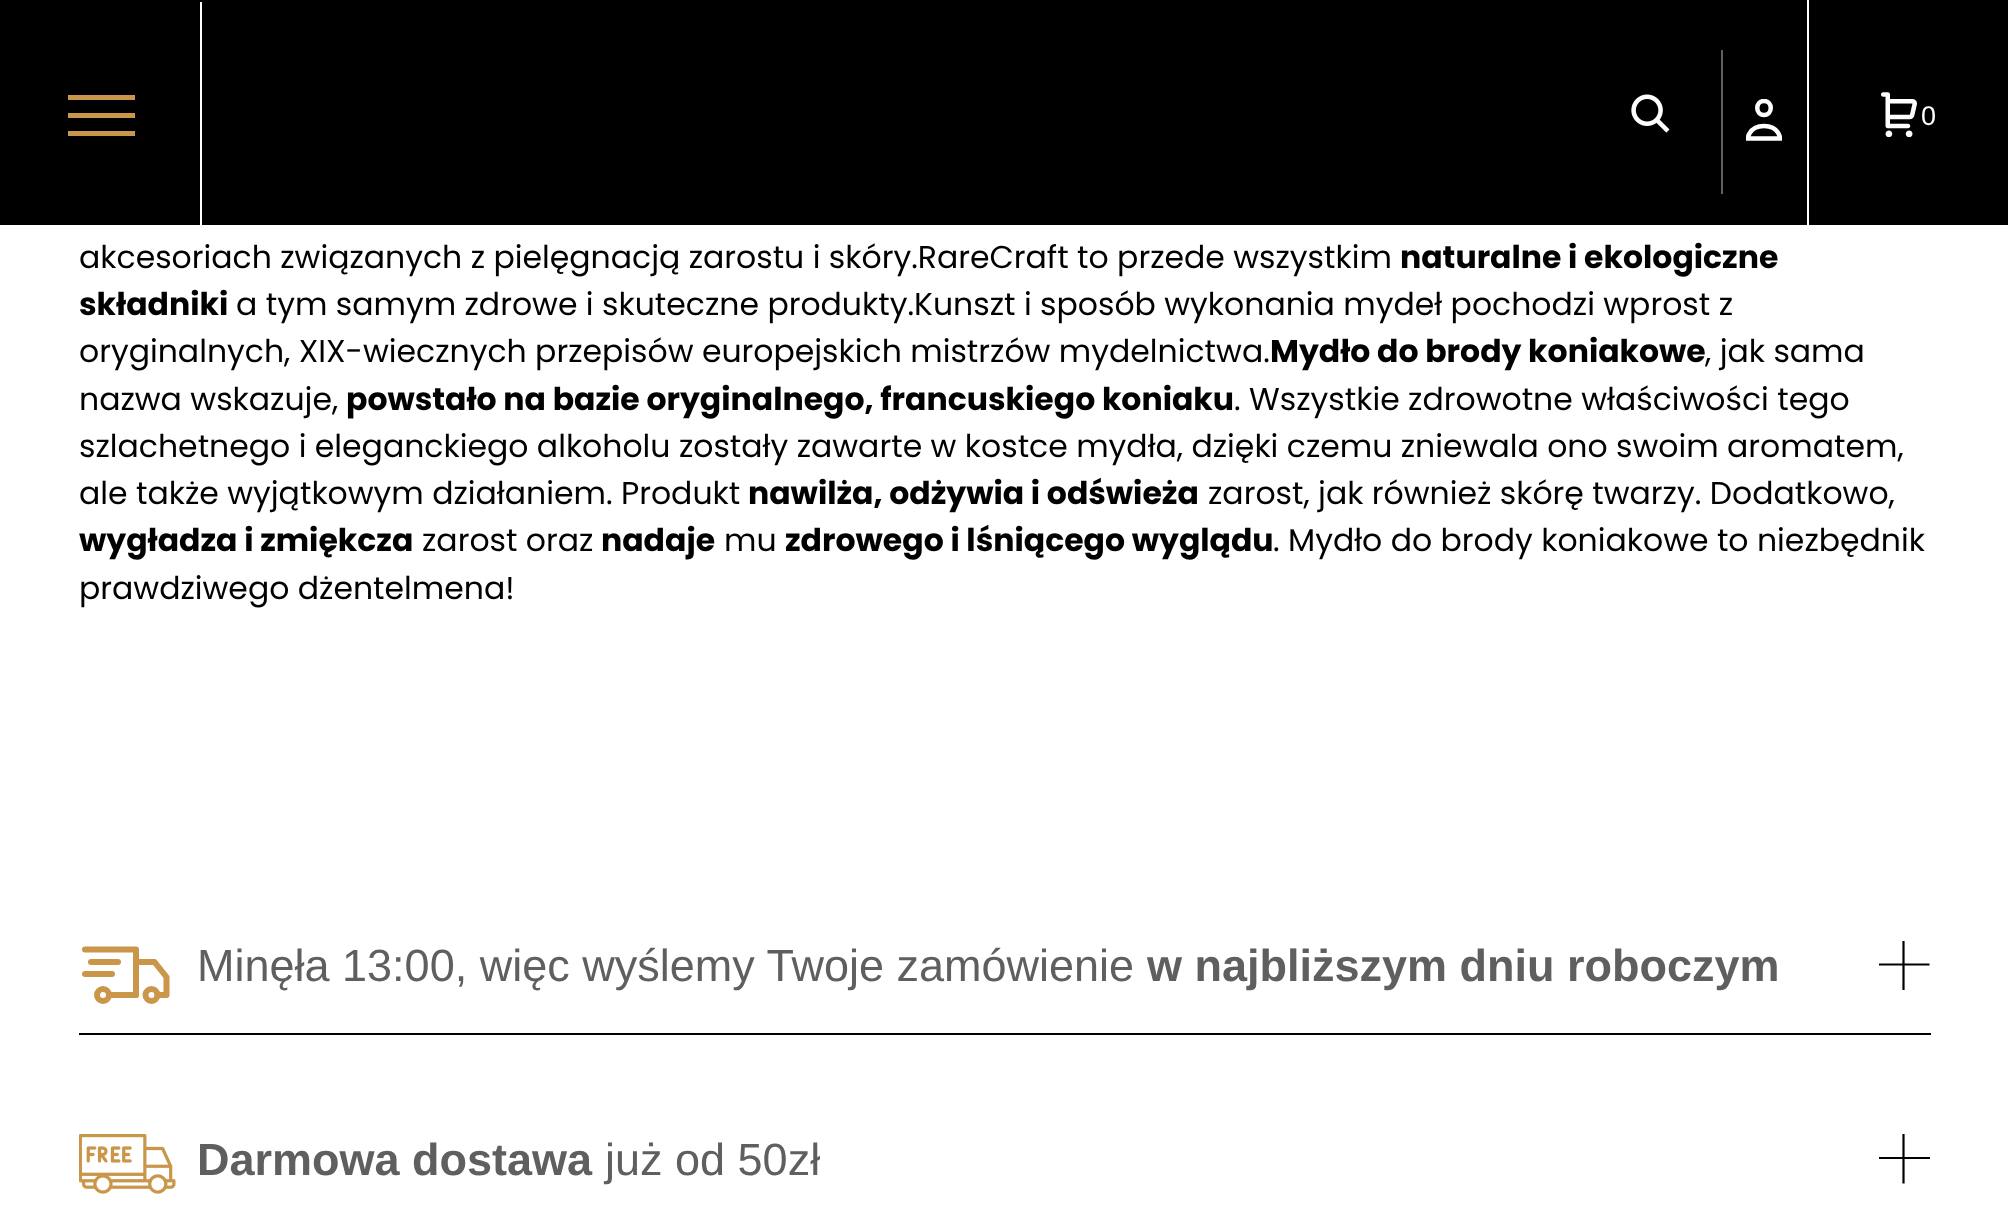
<svg xmlns="http://www.w3.org/2000/svg" width="2008" height="1214" viewBox="0 0 2008 1214">
  <defs>
    <clipPath id="clip1"><rect x="1746" y="99" width="36" height="43"/></clipPath>
    <clipPath id="clip2"><rect x="1879" y="941" width="52" height="51"/></clipPath>
    <clipPath id="clip3"><rect x="1879" y="1134" width="52" height="52"/></clipPath>
  </defs>
  <rect width="100%" height="100%" fill="#ffffff"/>
  <rect x="0" y="0" width="2008" height="225" fill="#000000"/>
  <rect x="200" y="2" width="2" height="225" fill="#ffffff"/>
  <rect x="68" y="95" width="67" height="5" fill="#c9964a"/>
  <rect x="68" y="113" width="67" height="5" fill="#c9964a"/>
  <rect x="68" y="131" width="67" height="5" fill="#c9964a"/>
  <image x="1631" y="94" width="39" height="39" href="img1.png"/>
  <rect x="1721" y="50" width="2" height="144" fill="#5f5f5f"/>
  <g clip-path="url(#clip1)">
    <path d="M1764 115C1755 115 1755 101 1764 101C1773 101 1773 115 1764 115ZM1764 126C1770 126 1775.5 128 1778.5 133.5C1779.5 135.5 1780 136.5 1780 138.5H1748C1748 136.5 1748.5 135 1749.5 133.5C1752.5 128 1758 126 1764 126Z" fill="none" stroke="#ffffff" stroke-width="4.5"/>
  </g>
  <rect x="1807" y="0" width="2" height="225" fill="#ffffff"/>
  <image x="1881" y="92" width="36" height="45" href="img2.png"/>
  <text x="1921" y="125" font-family="Liberation Sans" font-size="27" fill="#ffffff">0</text>
  <text x="79" y="268" font-family="Poppins" font-size="31.5" fill="#000000">akcesoriach związanych z pielęgnacją zarostu i skóry.RareCraft to przede wszystkim</text>
  <text x="1400" y="268" font-family="Poppins" font-size="31.5" font-weight="bold" fill="#000000">naturalne i ekologiczne</text>
  <text x="79" y="315" font-family="Poppins" font-size="31.5" font-weight="bold" fill="#000000">składniki</text>
  <text x="236" y="315" font-family="Poppins" font-size="31.5" fill="#000000">a tym samym zdrowe i skuteczne produkty.Kunszt i sposób wykonania mydeł pochodzi wprost z</text>
  <text x="79" y="362" font-family="Poppins" font-size="31.5" fill="#000000">oryginalnych, XIX-wiecznych przepisów europejskich mistrzów mydelnictwa.</text>
  <text x="1270" y="362" font-family="Poppins" font-size="31.5" font-weight="bold" fill="#000000">Mydło do brody koniakowe</text>
  <text x="1705" y="362" font-family="Poppins" font-size="31.5" fill="#000000">, jak sama</text>
  <text x="79" y="410" font-family="Poppins" font-size="31.5" fill="#000000">nazwa wskazuje,</text>
  <text x="346" y="410" font-family="Poppins" font-size="31.5" font-weight="bold" fill="#000000">powstało na bazie oryginalnego, francuskiego koniaku</text>
  <text x="1234" y="410" font-family="Poppins" font-size="31.5" fill="#000000">. Wszystkie zdrowotne właściwości tego</text>
  <text x="79" y="457" font-family="Poppins" font-size="31.5" fill="#000000">szlachetnego i eleganckiego alkoholu zostały zawarte w kostce mydła, dzięki czemu zniewala ono swoim aromatem,</text>
  <text x="79" y="504" font-family="Poppins" font-size="31.5" fill="#000000">ale także wyjątkowym działaniem. Produkt</text>
  <text x="748" y="504" font-family="Poppins" font-size="31.5" font-weight="bold" fill="#000000">nawilża, odżywia i odświeża</text>
  <text x="1208" y="504" font-family="Poppins" font-size="31.5" fill="#000000">zarost, jak również skórę twarzy. Dodatkowo,</text>
  <text x="79" y="551" font-family="Poppins" font-size="31.5" font-weight="bold" fill="#000000">wygładza i zmiękcza</text>
  <text x="422" y="551" font-family="Poppins" font-size="31.5" fill="#000000">zarost oraz</text>
  <text x="601" y="551" font-family="Poppins" font-size="31.5" font-weight="bold" fill="#000000">nadaje</text>
  <text x="724" y="551" font-family="Poppins" font-size="31.5" fill="#000000">mu</text>
  <text x="785" y="551" font-family="Poppins" font-size="31.5" font-weight="bold" fill="#000000">zdrowego i lśniącego wyglądu</text>
  <text x="1273" y="551" font-family="Poppins" font-size="31.5" fill="#000000">. Mydło do brody koniakowe to niezbędnik</text>
  <text x="79" y="599" font-family="Poppins" font-size="31.5" fill="#000000">prawdziwego dżentelmena!</text>
  <rect x="79" y="1033" width="1852" height="2" fill="#000000"/>
  <path d="M85 949.5H136V995H109" fill="none" stroke="#c9964a" stroke-width="6" stroke-linecap="round" stroke-linejoin="round"/>
  <circle cx="151.5" cy="995" r="6" fill="none" stroke="#c9964a" stroke-width="6"/>
  <circle cx="103" cy="995" r="6" fill="none" stroke="#c9964a" stroke-width="6"/>
  <path d="M136 995V962H154.5L166.5 977V995H157.5" fill="none" stroke="#c9964a" stroke-width="6" stroke-linecap="round" stroke-linejoin="round"/>
  <path d="M91 962H118M85 974H112" fill="none" stroke="#c9964a" stroke-width="6" stroke-linecap="round" stroke-linejoin="round"/>
  <text x="197" y="981" font-family="Liberation Sans" font-size="45" fill="#5f5f5f">Minęła 13:00, więc wyślemy Twoje zamówienie</text>
  <text x="1147" y="981" font-family="Liberation Sans" font-size="45" font-weight="bold" fill="#5f5f5f">w najbliższym dniu roboczym</text>
  <g clip-path="url(#clip2)">
    <path d="M1903.5 939.5V990" fill="none" stroke="#000000" stroke-width="2.2"/>
  </g>
  <path d="M1929.5 964.5H1879" fill="none" stroke="#000000" stroke-width="2.2"/>
  <image x="79" y="1134" width="97" height="60" href="img3.png"/>
  <text x="197" y="1175" font-family="Liberation Sans" font-size="45" font-weight="bold" fill="#5f5f5f">Darmowa dostawa</text>
  <text x="605" y="1175" font-family="Liberation Sans" font-size="45" fill="#5f5f5f">już od 50zł</text>
  <g clip-path="url(#clip3)">
    <path d="M1903.5 1133V1183.5" fill="none" stroke="#000000" stroke-width="2.2"/>
  </g>
  <rect x="1879" y="1157" width="51" height="2" fill="#000000"/>
</svg>
